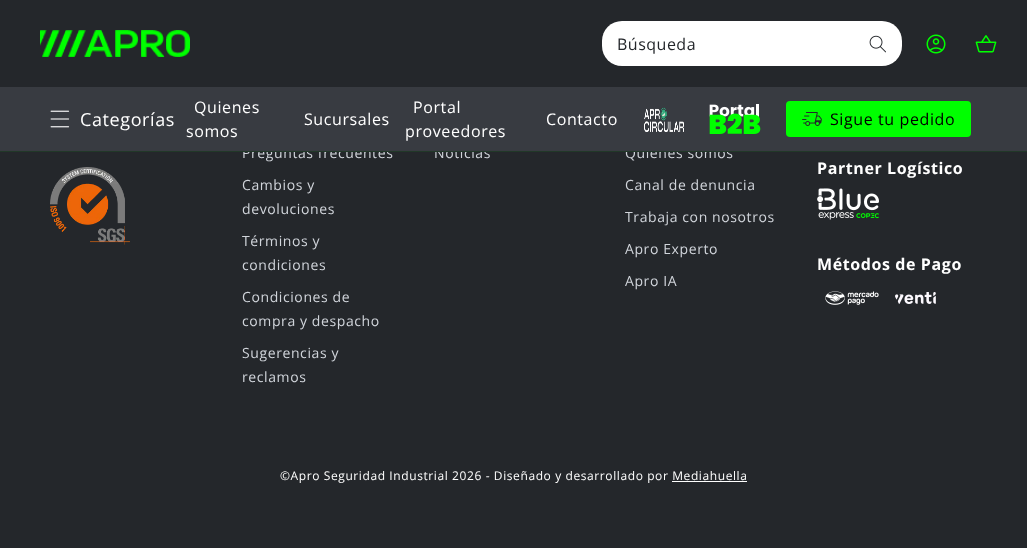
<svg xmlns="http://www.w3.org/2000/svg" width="1027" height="548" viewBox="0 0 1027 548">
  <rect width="100%" height="100%" fill="#24272b"/>
  <text x="242" y="158" font-family="Open Sans" font-size="14" letter-spacing="0.6" fill="#d1d5db">Preguntas frecuentes</text>
  <text x="434" y="158" font-family="Open Sans" font-size="14" letter-spacing="0.6" fill="#d1d5db">Noticias</text>
  <text x="625" y="158" font-family="Open Sans" font-size="14" letter-spacing="0.6" fill="#d1d5db">Quiénes somos</text>
  <rect x="0" y="151" width="1027" height="1" fill="#213828"/>
  <image x="40" y="30" width="150" height="27" href="img1.png"/>
  <rect x="602" y="21" width="300" height="45" rx="20" fill="#ffffff"/>
  <text x="617" y="50" font-family="Open Sans" font-size="16" letter-spacing="0.5" fill="#24272b">Búsqueda</text>
  <image x="869" y="35" width="17" height="18" href="img2.png"/>
  <image x="926" y="34" width="20" height="20" href="img3.png"/>
  <image x="975" y="35" width="22" height="18" href="img4.png"/>
  <rect x="0" y="87" width="1027" height="64" fill="#383b41"/>
  <image x="50" y="110" width="20" height="18" href="img5.png"/>
  <text x="80" y="126" font-family="Open Sans" font-size="18" letter-spacing="0.6" fill="#ffffff">Categorías</text>
  <text x="194" y="113" font-family="Open Sans" font-size="16" letter-spacing="0.6" fill="#ffffff">Quienes</text>
  <text x="186" y="137" font-family="Open Sans" font-size="16" letter-spacing="0.6" fill="#ffffff">somos</text>
  <text x="304" y="125" font-family="Open Sans" font-size="16" letter-spacing="0.6" fill="#ffffff">Sucursales</text>
  <text x="413" y="113" font-family="Open Sans" font-size="16" letter-spacing="0.6" fill="#ffffff">Portal</text>
  <text x="405" y="137" font-family="Open Sans" font-size="16" letter-spacing="0.6" fill="#ffffff">proveedores</text>
  <text x="546" y="125" font-family="Open Sans" font-size="16" letter-spacing="0.6" fill="#ffffff">Contacto</text>
  <image x="644" y="107" width="40" height="25" href="img6.png"/>
  <image x="709" y="104" width="52" height="30" href="img7.png"/>
  <rect x="786" y="101" width="185" height="36" rx="4" fill="#00ff00"/>
  <image x="802" y="112" width="20" height="14" href="img8.png"/>
  <text x="830" y="125" font-family="Open Sans" font-size="16" letter-spacing="0.6" fill="#000000">Sigue tu pedido</text>
  <image x="50" y="167" width="80" height="78" href="img9.png"/>
  <text x="242" y="190" font-family="Open Sans" font-size="14" letter-spacing="0.6" fill="#d1d5db">Cambios y</text>
  <text x="242" y="214" font-family="Open Sans" font-size="14" letter-spacing="0.6" fill="#d1d5db">devoluciones</text>
  <text x="242" y="246" font-family="Open Sans" font-size="14" letter-spacing="0.6" fill="#d1d5db">Términos y</text>
  <text x="242" y="270" font-family="Open Sans" font-size="14" letter-spacing="0.6" fill="#d1d5db">condiciones</text>
  <text x="242" y="302" font-family="Open Sans" font-size="14" letter-spacing="0.6" fill="#d1d5db">Condiciones de</text>
  <text x="242" y="326" font-family="Open Sans" font-size="14" letter-spacing="0.6" fill="#d1d5db">compra y despacho</text>
  <text x="242" y="358" font-family="Open Sans" font-size="14" letter-spacing="0.6" fill="#d1d5db">Sugerencias y</text>
  <text x="242" y="382" font-family="Open Sans" font-size="14" letter-spacing="0.6" fill="#d1d5db">reclamos</text>
  <text x="625" y="190" font-family="Open Sans" font-size="14" letter-spacing="0.6" fill="#d1d5db">Canal de denuncia</text>
  <text x="625" y="222" font-family="Open Sans" font-size="14" letter-spacing="0.6" fill="#d1d5db">Trabaja con nosotros</text>
  <text x="625" y="254" font-family="Open Sans" font-size="14" letter-spacing="0.6" fill="#d1d5db">Apro Experto</text>
  <text x="625" y="286" font-family="Open Sans" font-size="14" letter-spacing="0.6" fill="#d1d5db">Apro IA</text>
  <text x="817" y="174" font-family="Open Sans" font-size="16" font-weight="bold" letter-spacing="0.6" fill="#ffffff">Partner Logístico</text>
  <image x="817" y="188" width="62" height="32" href="img10.png"/>
  <text x="817" y="270" font-family="Open Sans" font-size="16" font-weight="bold" letter-spacing="0.6" fill="#ffffff">Métodos de Pago</text>
  <image x="825" y="291" width="54" height="14" href="img11.png"/>
  <image x="895" y="292" width="41" height="12" href="img12.png"/>
  <text x="280" y="480" font-family="Open Sans" font-size="12" letter-spacing="0.6" fill="#ffffff">©Apro Seguridad Industrial 2026 - Diseñado y desarrollado por Mediahuella</text>
  <rect x="672" y="481" width="75" height="1" fill="#ffffff"/>
</svg>
